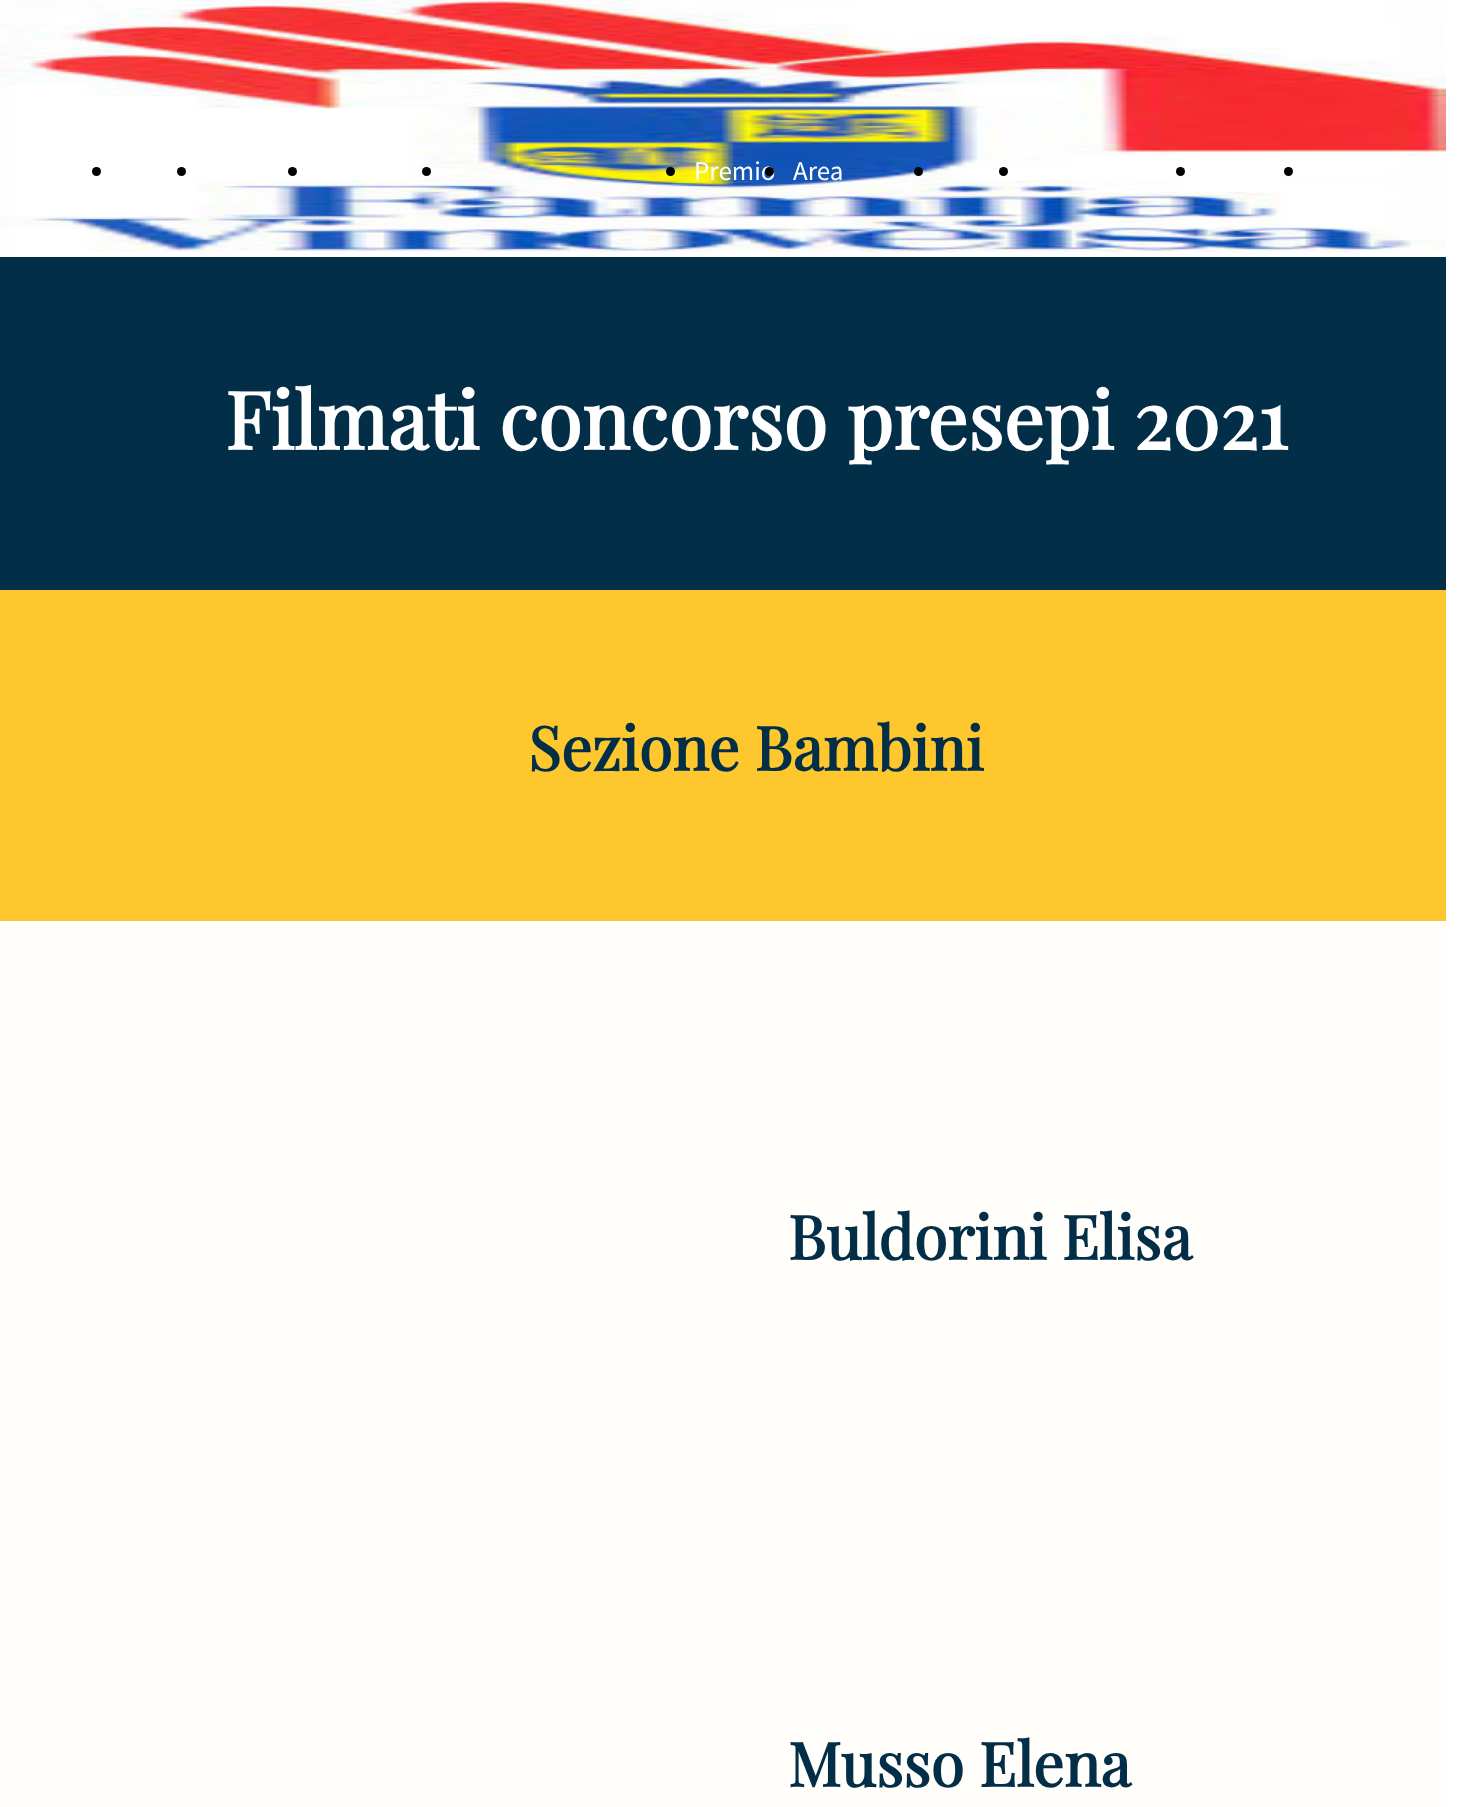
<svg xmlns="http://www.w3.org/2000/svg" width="1463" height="1807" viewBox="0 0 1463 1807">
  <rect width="100%" height="100%" fill="#ffffff"/>
  <image x="0" y="0" width="1446" height="252" href="img1.png"/>
  <circle cx="96.5" cy="171.5" r="4.5" fill="#000000"/>
  <circle cx="181.5" cy="171.5" r="4.5" fill="#000000"/>
  <circle cx="292.5" cy="171.5" r="4.5" fill="#000000"/>
  <circle cx="426.5" cy="171.5" r="4.5" fill="#000000"/>
  <circle cx="670.5" cy="171.5" r="4.5" fill="#000000"/>
  <text x="694" y="180" font-family="Source Sans Pro" font-size="27" fill="#ffffff">Premio</text>
  <circle cx="769.5" cy="171.5" r="4.5" fill="#000000"/>
  <text x="793" y="180" font-family="Source Sans Pro" font-size="27" fill="#ffffff">Area</text>
  <circle cx="918.5" cy="171.5" r="4.5" fill="#000000"/>
  <circle cx="1003.5" cy="171.5" r="4.5" fill="#000000"/>
  <circle cx="1180.5" cy="171.5" r="4.5" fill="#000000"/>
  <circle cx="1288.5" cy="171.5" r="4.5" fill="#000000"/>
  <rect x="0" y="257" width="1446" height="333" fill="#032e47"/>
  <text x="225" y="450" font-family="Playfair Display" font-size="79.9" font-weight="bold" fill="#ffffff">Filmati concorso presepi 2021</text>
  <rect x="0" y="590" width="1446" height="331" fill="#fec72e"/>
  <text x="528" y="771" font-family="Playfair Display" font-size="61" font-weight="bold" fill="#032e47">Sezione Bambini</text>
  <rect x="0" y="921" width="1446" height="886" fill="#fffefb"/>
  <text x="788" y="1260" font-family="Playfair Display" font-size="61" font-weight="bold" fill="#032e47">Buldorini Elisa</text>
  <text x="788" y="1787" font-family="Playfair Display" font-size="61" font-weight="bold" fill="#032e47">Musso Elena</text>
</svg>
